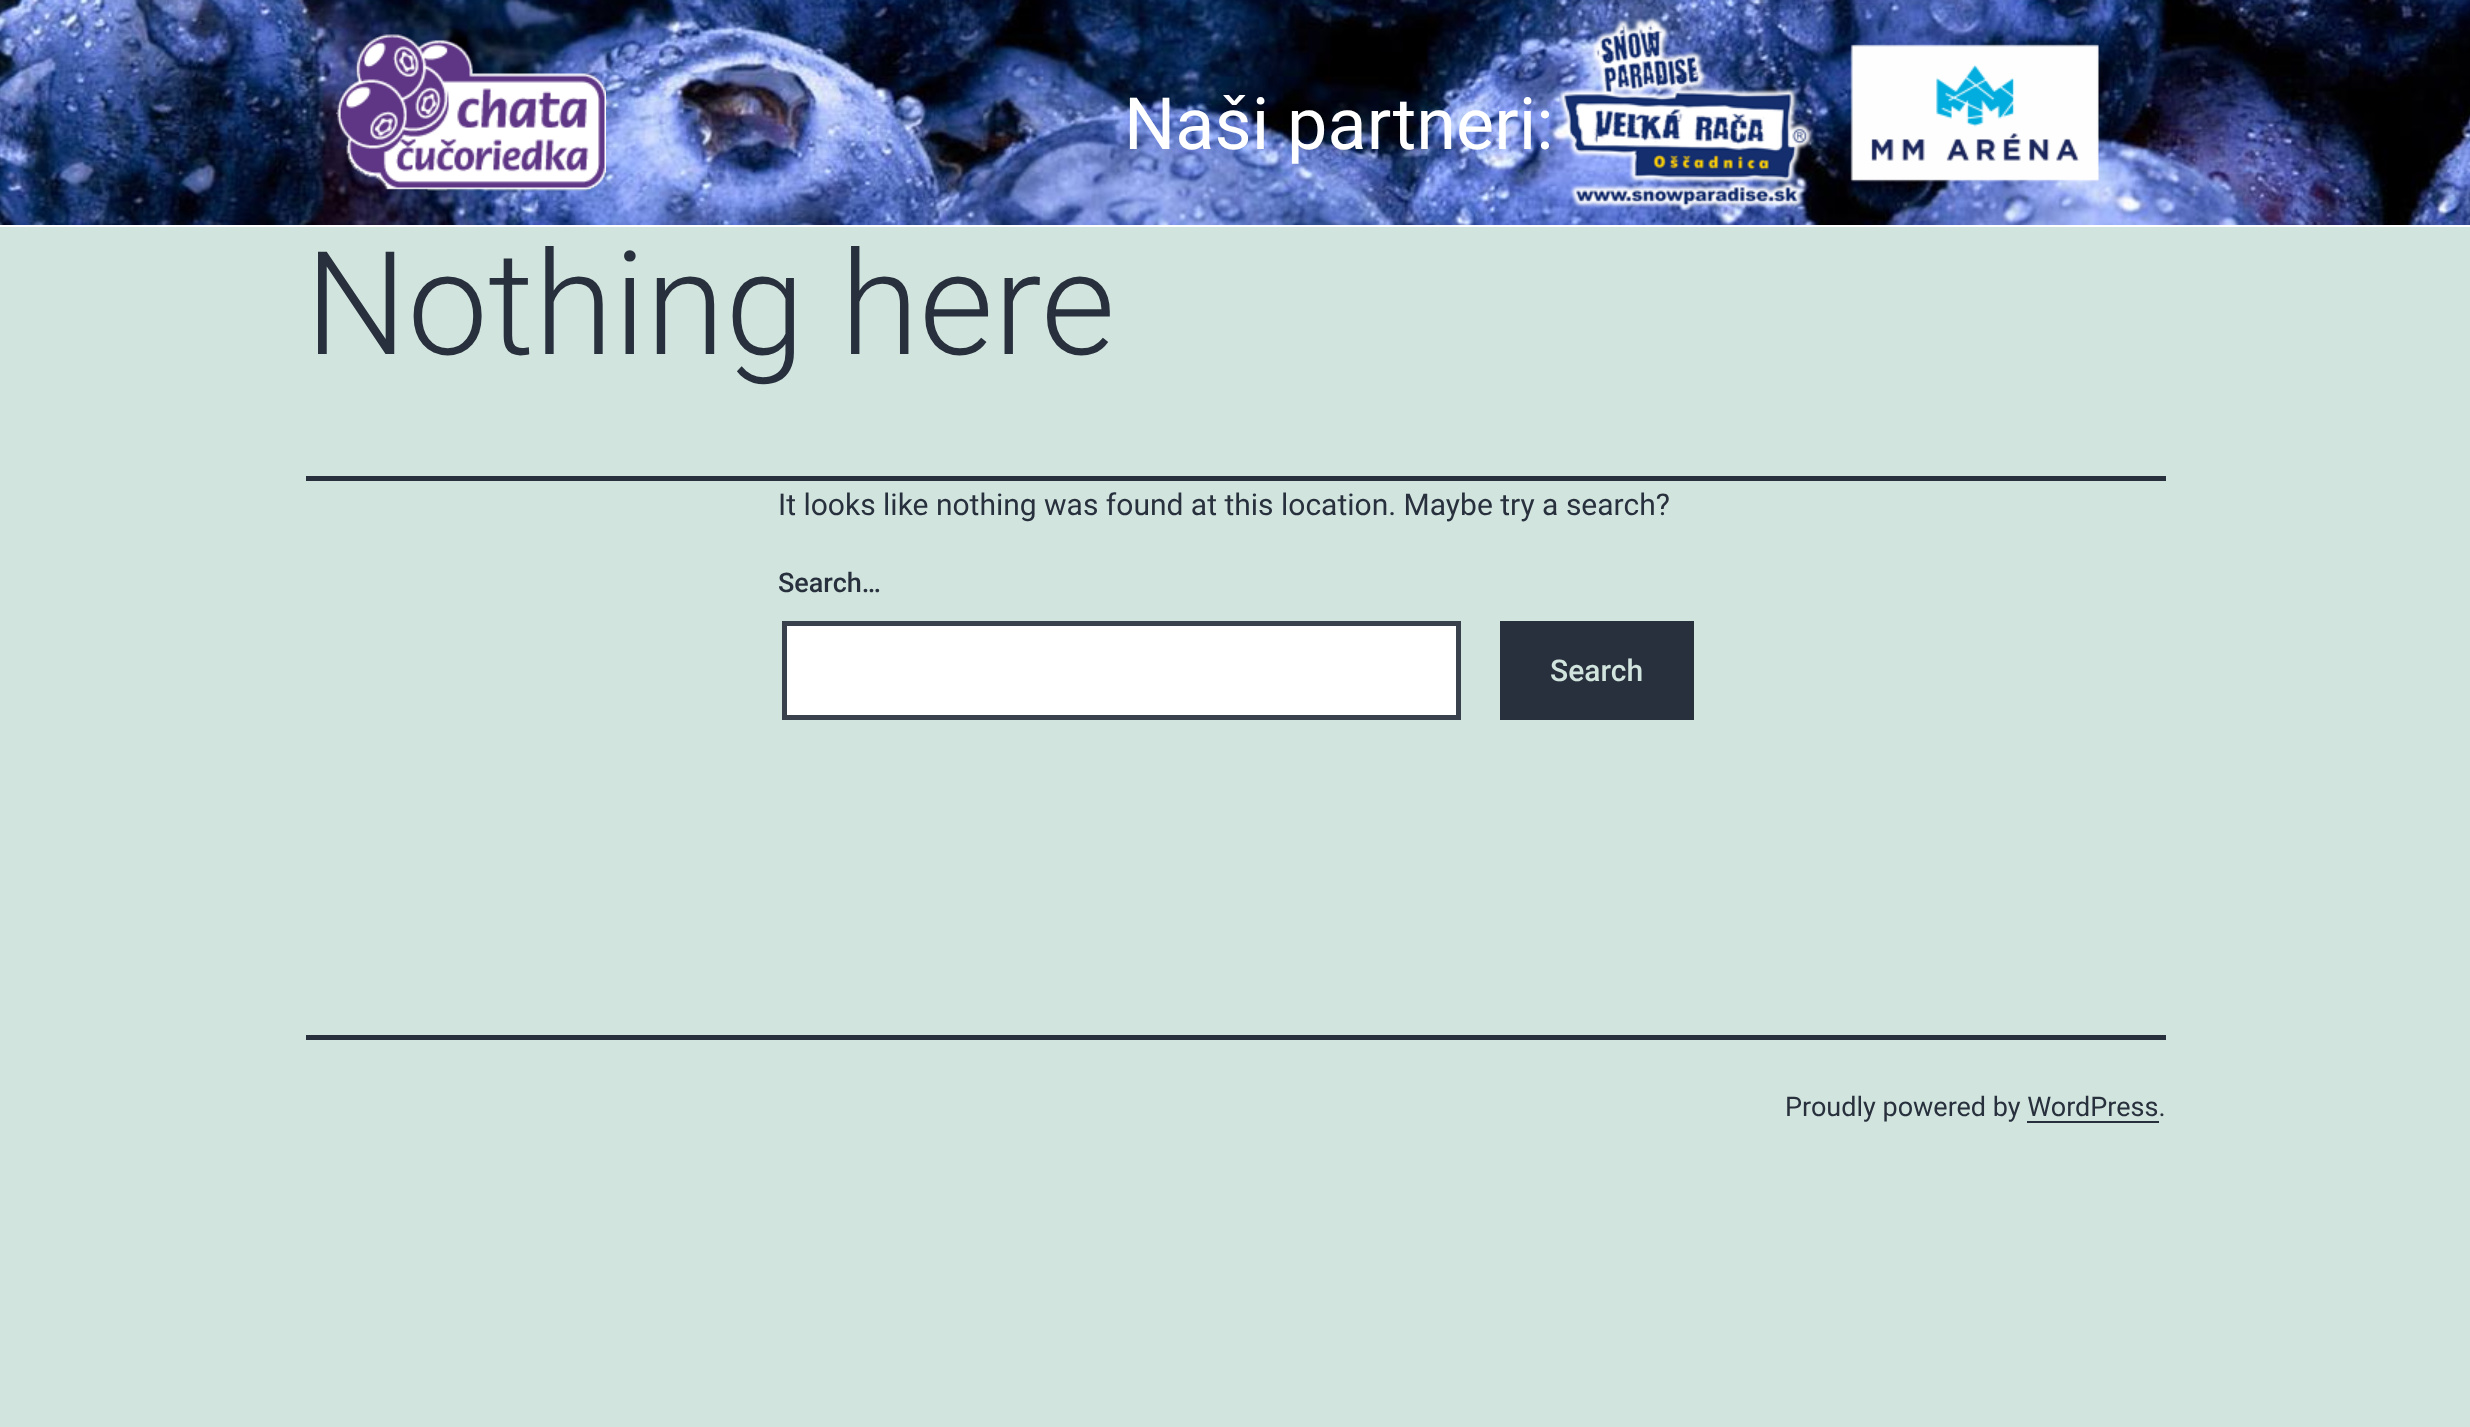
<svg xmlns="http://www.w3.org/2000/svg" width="2470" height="1427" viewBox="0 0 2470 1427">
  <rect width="100%" height="100%" fill="#d1e4dd"/>
  <image x="0" y="0" width="2470" height="225" href="img1.png"/>
  <image x="336" y="34" width="270" height="157" href="img2.png"/>
  <text x="1124" y="149" font-family="Roboto" font-size="72" fill="#ffffff">Naši partneri:</text>
  <image x="1558" y="16" width="255" height="194" href="img3.png"/>
  <image x="1850" y="44" width="249" height="138" href="img4.png"/>
  <rect x="0" y="225" width="2470" height="2" fill="#ffffff"/>
  <rect x="306" y="476" width="1860" height="5" fill="#28303d"/>
  <text x="305" y="354" font-family="Roboto" font-size="144" font-weight="300" fill="#28303d">Nothing here</text>
  <text x="778" y="515" font-family="Roboto" font-size="30" fill="#28303d">It looks like nothing was found at this location. Maybe try a search?</text>
  <text x="778" y="592" font-family="Roboto" font-size="27" font-weight="500" fill="#28303d">Search…</text>
  <rect x="784.5" y="623.5" width="674" height="94" fill="#ffffff" stroke="#39414d" stroke-width="5"/>
  <rect x="1500" y="621" width="194" height="99" fill="#28303d"/>
  <text x="1550" y="681" font-family="Roboto" font-size="30" font-weight="500" fill="#d1e4dd">Search</text>
  <rect x="306" y="1035" width="1860" height="5" fill="#28303d"/>
  <text x="1785" y="1116" font-family="Roboto" font-size="27" fill="#28303d">Proudly powered by WordPress.</text>
  <rect x="2027" y="1121" width="132" height="2" fill="#28303d"/>
</svg>
